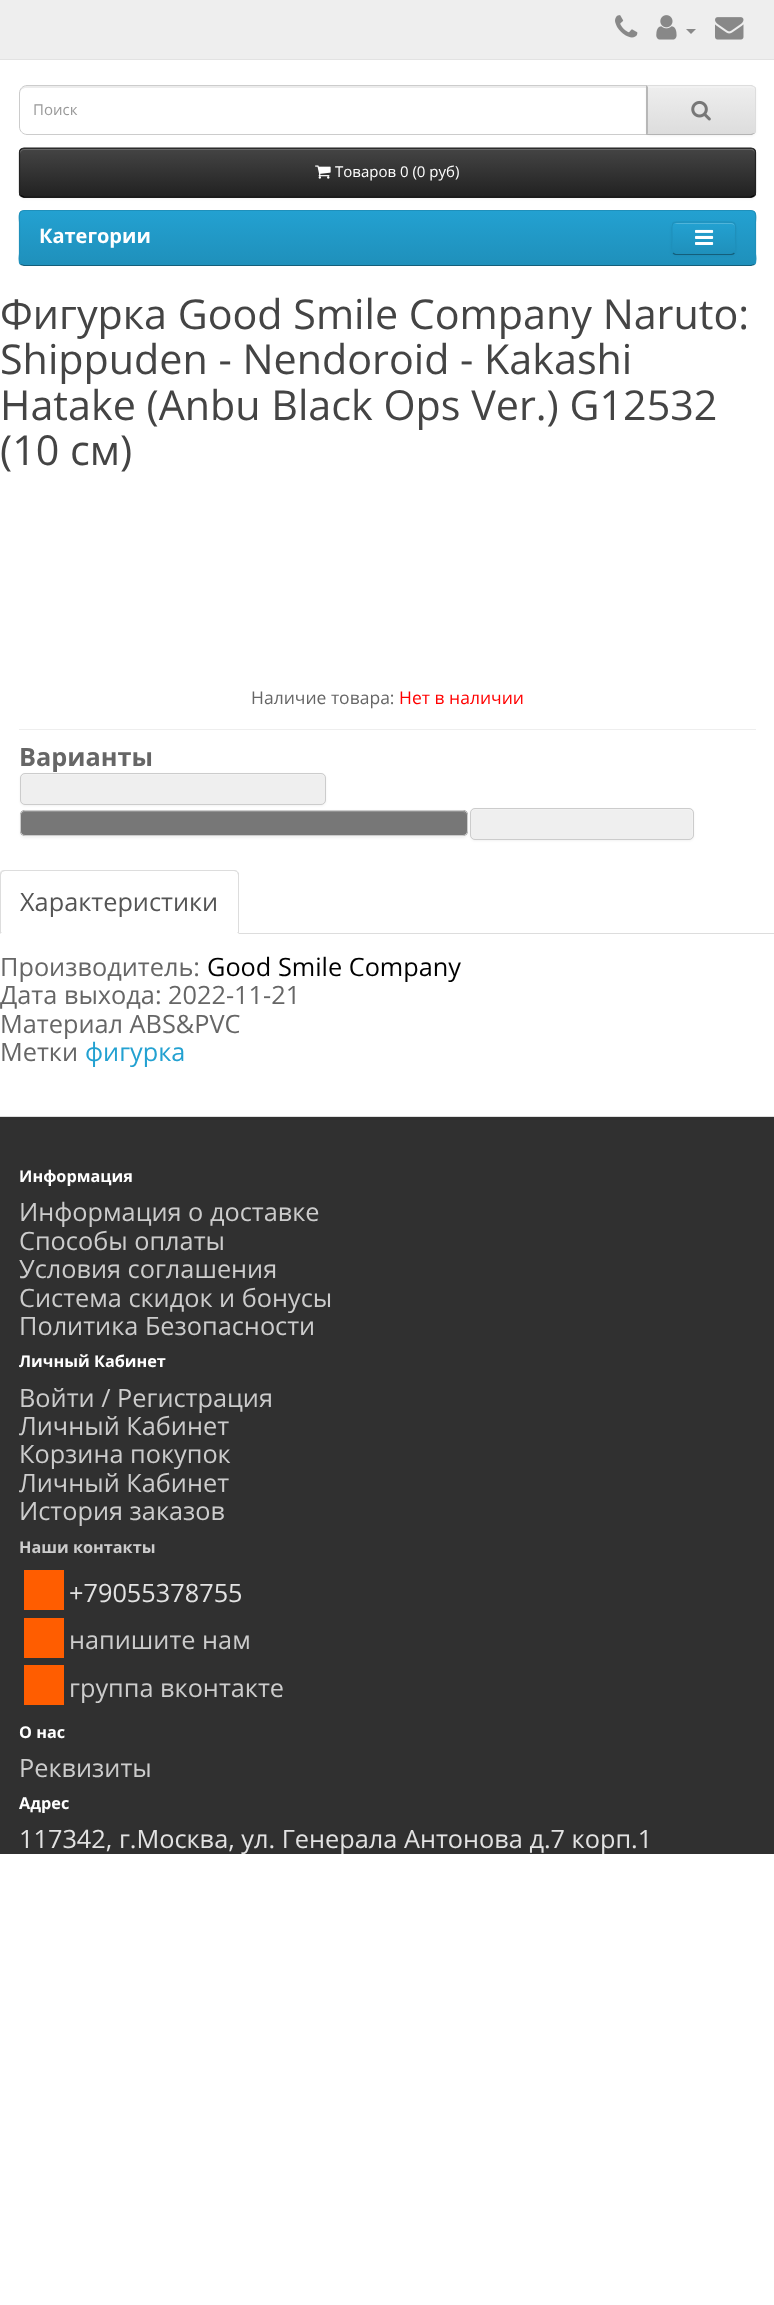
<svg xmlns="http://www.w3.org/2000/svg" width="774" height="2305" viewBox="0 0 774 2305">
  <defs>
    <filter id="blur1" x="-50%" y="-200%" width="200%" height="500%"><feGaussianBlur stdDeviation="1"/></filter>
    <clipPath id="clip1"><path d="M646 85H751C754 85 756 87 756 90V130C756 133 754 135 751 135H646Z"/></clipPath>
    <linearGradient id="g1" gradientUnits="userSpaceOnUse" x1="701" y1="86" x2="701" y2="134"><stop offset="0" stop-color="#eeeeee"/><stop offset="1" stop-color="#dddddd"/></linearGradient>
    <clipPath id="clip2"><rect x="19" y="148" width="737" height="50" rx="5"/></clipPath>
    <linearGradient id="g2" gradientUnits="userSpaceOnUse" x1="388" y1="149" x2="388" y2="196"><stop offset="0" stop-color="#444444"/><stop offset="1" stop-color="#222222"/></linearGradient>
    <clipPath id="clip3"><rect x="19" y="210" width="737" height="56" rx="5"/></clipPath>
    <linearGradient id="g3" gradientUnits="userSpaceOnUse" x1="388" y1="211" x2="388" y2="265"><stop offset="0" stop-color="#23a1d1"/><stop offset="1" stop-color="#1f90bb"/></linearGradient>
    <clipPath id="clip4"><rect x="671" y="221" width="65" height="34" rx="5"/></clipPath>
    <linearGradient id="g4" gradientUnits="userSpaceOnUse" x1="704" y1="223" x2="704" y2="254"><stop offset="0" stop-color="#23a1d1"/><stop offset="1" stop-color="#1f90bb"/></linearGradient>
  </defs>
  <rect width="100%" height="100%" fill="#ffffff"/>
  <rect x="0" y="0" width="774" height="59" fill="#eeeeee"/>
  <rect x="0" y="59" width="774" height="1" fill="#e2e2e2"/>
  <image x="615" y="15" width="23" height="23" href="img1.png"/>
  <image x="656" y="15" width="21" height="25" href="img2.png"/>
  <path d="M686 29H696L691 34Z" fill="#888888"/>
  <image x="715" y="17" width="29" height="23" href="img3.png"/>
  <path d="M26 88H646V86H26C21 86 20 90 20 94C20 90 23 88 26 88Z" fill="#ececec"/>
  <path d="M27 85.5H647.5V134.5H27C23 134.5 19.5 131 19.5 127V93C19.5 89 23 85.5 27 85.5Z" fill="none" stroke="#cccccc"/>
  <text x="33" y="115" font-family="Open Sans" font-size="15" fill="#999999">Поиск</text>
  <rect x="646" y="86" width="110" height="50" rx="5" fill="#000000" fill-opacity="0.05" filter="url(#blur1)"/>
  <g clip-path="url(#clip1)">
    <rect x="647" y="86" width="109" height="48" fill="url(#g1)"/>
  </g>
  <path d="M648 88H751C753 88 755 89 755 91V90C755 88 753 86 751 86H648Z" fill="#f1f1f1"/>
  <path d="M648 86H751L754 87H755L752 85H646L648 87Z" fill="#dddddd"/>
  <path d="M755 87C756 87 756 89 756 90V130C756 131 756 133 755 133H754C755 132 755 131 755 130V90C755 89 755 88 754 87Z" fill="#dddddd"/>
  <path d="M646 135H752L755 133H754L751 134H648V133Z" fill="#b3b3b3"/>
  <path d="M646 135L648 133V87L646 85Z" fill="#b7b7b7"/>
  <image x="691" y="100" width="20" height="21" href="img4.png"/>
  <rect x="19" y="149" width="737" height="50" rx="5" fill="#000000" fill-opacity="0.05" filter="url(#blur1)"/>
  <rect x="19" y="148" width="737" height="50" rx="5" fill="#363636"/>
  <g clip-path="url(#clip2)">
    <rect x="19" y="149" width="737" height="47" fill="url(#g2)"/>
  </g>
  <path d="M24 150H751C753 150 755 152 755 154C755 151 754 149 751 149H24L21 150L20 151V154C20 152 22 150 24 150Z" fill="#696969"/>
  <path d="M754.5 195.5L751 197H24L20.5 195.5" fill="none" stroke="#000000" stroke-width="1.2"/>
  <path d="M20.5 195.5C20 195 19.5 193.5 19.5 192.5V152.5C19.5 151.5 20 150 20.5 149.5C21.5 148.5 22.5 148 24 148H751C752.5 148 753.5 148.5 754.5 149.5C755 150 755.5 151.5 755.5 152.5V192.5C755.5 193.5 755 195 754.5 195.5" fill="none" stroke="#222222" stroke-width="1.2"/>
  <image x="315" y="165" width="16" height="14" href="img5.png"/>
  <text x="335" y="177" font-family="Open Sans" font-size="15" fill="#ffffff">Товаров 0 (0 руб)</text>
  <g clip-path="url(#clip3)">
    <rect x="19" y="211" width="737" height="54" fill="url(#g3)"/>
  </g>
  <path d="M754.5 264.5L751 265.5H24L20.5 264.5" fill="none" stroke="#145e7a" stroke-width="1.2"/>
  <path d="M20.5 264.5C18 262 19.5 255.5 19.5 253.5V222.5C19.5 219.5 17.5 210.5 24 210.5H751C757.5 210.5 755.5 219.5 755.5 222.5V253.5C755.5 255.5 757 262 754.5 264.5" fill="none" stroke="#1f90bb" stroke-width="1.2"/>
  <text x="39" y="243" font-family="Open Sans" font-size="20" font-weight="bold" fill="#ffffff">Категории</text>
  <rect x="671" y="223" width="65" height="33" rx="5" fill="#000000" fill-opacity="0.05" filter="url(#blur1)"/>
  <rect x="671" y="221" width="65" height="34" rx="5" fill="#229ac8"/>
  <g clip-path="url(#clip4)">
    <rect x="671" y="223" width="65" height="31" fill="url(#g4)"/>
  </g>
  <path d="M676 224H731C733 224 735 225 735 228V227C735 225 733 223 731 223H677C676 223 675 224 674 224Z" fill="#4fb4da"/>
  <path d="M734.5 253C733.5 254 732.5 254.5 731 254.5H676C675 254.5 674 254 673 253" fill="none" stroke="#145e7a" stroke-width="1.2"/>
  <path d="M673 253C670.5 250.5 672 241.5 672 238C672 221.5 669 222 685.5 222H722C738.5 222 735.5 221.5 735.5 238C735.5 241.5 737 250.5 734.5 253" fill="none" stroke="#1f90bb" stroke-width="1.2"/>
  <image x="695" y="229" width="19" height="16" href="img6.png"/>
  <text x="0" y="329" font-family="Open Sans" font-size="41.25" fill="#444444">Фигурка Good Smile Company Naruto:</text>
  <text x="0" y="374" font-family="Open Sans" font-size="41.25" fill="#444444">Shippuden - Nendoroid - Kakashi</text>
  <text x="0" y="420" font-family="Open Sans" font-size="41.25" fill="#444444">Hatake (Anbu Black Ops Ver.) G12532</text>
  <text x="0" y="465" font-family="Open Sans" font-size="41.25" fill="#444444">(10 см)</text>
  <text x="251" y="704" font-family="Open Sans" font-size="17.5" fill="#666666">Наличие товара:</text>
  <text x="399" y="704" font-family="Open Sans" font-size="17.5" fill="#ff0000">Нет в наличии</text>
  <rect x="19" y="729" width="737" height="1" fill="#eeeeee"/>
  <text x="19" y="766" font-family="Open Sans" font-size="25.3" font-weight="bold" fill="#666666">Варианты</text>
  <rect x="20" y="774" width="306" height="32" rx="5" fill="#000000" fill-opacity="0.05" filter="url(#blur1)"/>
  <rect x="20" y="773" width="306" height="32" rx="5" fill="#efefef"/>
  <path d="M25 775H321C323 775 325 777 325 779C325 776 324 774 321 774H25L22 775C21 776 21 778 21 779C21 777 23 775 25 775Z" fill="#f2f2f2"/>
  <rect x="20.5" y="773.5" width="305" height="31" rx="4.5" fill="none" stroke="#cccccc"/>
  <rect x="20" y="811" width="448" height="27" rx="5" fill="#000000" fill-opacity="0.05" filter="url(#blur1)"/>
  <rect x="20" y="810" width="448" height="26" rx="5" fill="#777777"/>
  <path d="M25 812H462C465 812 466 814 466 816C466 813 465 811 462 811H25L23 812L22 813L21 816C21 814 23 812 25 812Z" fill="#929292"/>
  <rect x="20.5" y="810.5" width="447" height="25" rx="4.5" fill="none" stroke="#cccccc"/>
  <rect x="470" y="809" width="224" height="32" rx="5" fill="#000000" fill-opacity="0.05" filter="url(#blur1)"/>
  <rect x="470" y="808" width="224" height="32" rx="5" fill="#efefef"/>
  <path d="M475 810H689C693 810 692 819 692 821V838C692 837 693 836 693 835V813C693 811 691 809 689 809H475C473 809 471 811 471 813V814C471 812 473 810 475 810Z" fill="#f2f2f2"/>
  <rect x="470.5" y="808.5" width="223" height="31" rx="4.5" fill="none" stroke="#cccccc"/>
  <rect x="239" y="933" width="535" height="1" fill="#dddddd"/>
  <path d="M5 870C4 870 2 870 1 871L2 872L5 871H234L237 872V871C237 870 235 870 234 870Z" fill="#dddddd"/>
  <path d="M237 871L239 873V934L237 932H238V875L237 872Z" fill="#dddddd"/>
  <path d="M0 934L2 932H1V875L2 872L1 871C0 872 0 874 0 875Z" fill="#dddddd"/>
  <text x="20" y="911" font-family="Open Sans" font-size="25.3" fill="#555555">Характеристики</text>
  <text x="0" y="976" font-family="Open Sans" font-size="25.3" fill="#666666">Производитель:</text>
  <text x="207" y="976" font-family="Open Sans" font-size="25.3" fill="#000000">Good Smile Company</text>
  <text x="0" y="1004" font-family="Open Sans" font-size="25.3" fill="#666666">Дата выхода: 2022-11-21</text>
  <text x="0" y="1033" font-family="Open Sans" font-size="25.3" fill="#666666">Материал ABS&amp;PVC</text>
  <text x="0" y="1061" font-family="Open Sans" font-size="25.3" fill="#666666">Метки</text>
  <text x="85" y="1061" font-family="Open Sans" font-size="25.3" fill="#23a1d1">фигурка</text>
  <rect x="0" y="1117" width="774" height="737" fill="#303030"/>
  <rect x="0" y="1116" width="774" height="1" fill="#dddddd"/>
  <text x="19" y="1182" font-family="Open Sans" font-size="16.25" font-weight="bold" fill="#ffffff">Информация</text>
  <text x="19" y="1221" font-family="Open Sans" font-size="25.3" fill="#cccccc">Информация о доставке</text>
  <text x="19" y="1250" font-family="Open Sans" font-size="25.3" fill="#cccccc">Способы оплаты</text>
  <text x="19" y="1278" font-family="Open Sans" font-size="25.3" fill="#cccccc">Условия соглашения</text>
  <text x="19" y="1307" font-family="Open Sans" font-size="25.3" fill="#cccccc">Система скидок и бонусы</text>
  <text x="19" y="1335" font-family="Open Sans" font-size="25.3" fill="#cccccc">Политика Безопасности</text>
  <text x="19" y="1367" font-family="Open Sans" font-size="16.25" font-weight="bold" fill="#ffffff">Личный Кабинет</text>
  <text x="19" y="1407" font-family="Open Sans" font-size="25.3" fill="#cccccc">Войти / Регистрация</text>
  <text x="19" y="1435" font-family="Open Sans" font-size="25.3" fill="#cccccc">Личный Кабинет</text>
  <text x="19" y="1463" font-family="Open Sans" font-size="25.3" fill="#cccccc">Корзина покупок</text>
  <text x="19" y="1492" font-family="Open Sans" font-size="25.3" fill="#cccccc">Личный Кабинет</text>
  <text x="19" y="1520" font-family="Open Sans" font-size="25.3" fill="#cccccc">История заказов</text>
  <text x="19" y="1553" font-family="Open Sans" font-size="16.25" font-weight="bold" fill="#cccccc">Наши контакты</text>
  <rect x="24" y="1570" width="40" height="40" fill="#ff5d00"/>
  <text x="69" y="1602" font-family="Open Sans" font-size="25.3" fill="#e2e2e2">+79055378755</text>
  <rect x="24" y="1618" width="40" height="40" fill="#ff5d00"/>
  <text x="69" y="1649" font-family="Open Sans" font-size="25.3" fill="#cccccc">напишите нам</text>
  <rect x="24" y="1665" width="40" height="40" fill="#ff5d00"/>
  <text x="69" y="1697" font-family="Open Sans" font-size="25.3" fill="#cccccc">группа вконтакте</text>
  <text x="19" y="1738" font-family="Open Sans" font-size="16.25" font-weight="bold" fill="#ffffff">О нас</text>
  <text x="19" y="1777" font-family="Open Sans" font-size="25.3" fill="#cccccc">Реквизиты</text>
  <text x="19" y="1809" font-family="Open Sans" font-size="16.25" font-weight="bold" fill="#ffffff">Адрес</text>
  <text x="19" y="1848" font-family="Open Sans" font-size="25.3" fill="#e2e2e2">117342, г.Москва, ул. Генерала Антонова д.7 корп.1</text>
</svg>
